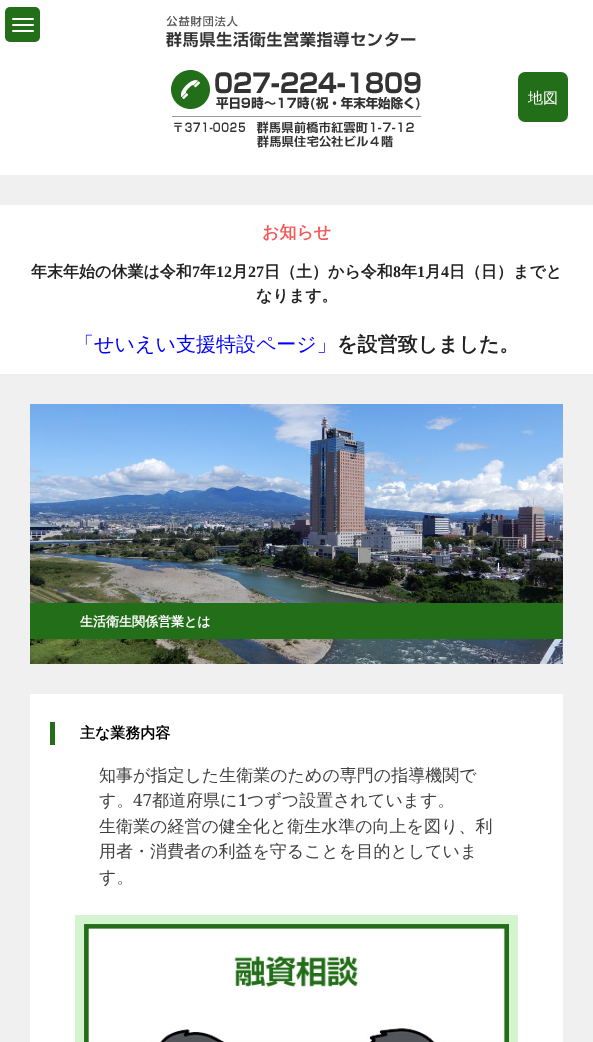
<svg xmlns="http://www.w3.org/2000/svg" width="593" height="1042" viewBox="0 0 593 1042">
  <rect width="100%" height="100%" fill="#f0f0f0"/>
  <rect x="0" y="0" width="593" height="175" fill="#ffffff"/>
  <rect x="5" y="7" width="35" height="35" rx="5" fill="#236e19"/>
  <rect x="12" y="24" width="22" height="2" rx="1" fill="#ffffff"/>
  <rect x="12" y="18" width="22" height="2" rx="1" fill="#ffffff"/>
  <rect x="12" y="30" width="22" height="2" rx="1" fill="#ffffff"/>
  <image x="166" y="15" width="250" height="33" href="img1.png"/>
  <image x="171" y="70" width="250" height="78" href="img2.png"/>
  <rect x="518" y="72" width="50" height="50" rx="7" fill="#236e19"/>
  <text x="528" y="103" font-family="WenQuanYi Zen Hei" font-size="15" font-weight="500" fill="#ffffff">地図</text>
  <rect x="0" y="205" width="593" height="169" fill="#ffffff"/>
  <text x="262" y="238" font-family="WenQuanYi Zen Hei" font-size="17" font-weight="bold" fill="#f5595a">お知らせ</text>
  <text x="31" y="277" font-family="WenQuanYi Zen Hei" font-size="16" font-weight="bold" fill="#222222">年末年始の休業は令和</text>
  <text x="192" y="277" font-family="Liberation Serif" font-size="16" font-weight="bold" fill="#222222">7</text>
  <text x="200" y="277" font-family="WenQuanYi Zen Hei" font-size="16" font-weight="bold" fill="#222222">年</text>
  <text x="216" y="277" font-family="Liberation Serif" font-size="16" font-weight="bold" fill="#222222">12</text>
  <text x="232" y="277" font-family="WenQuanYi Zen Hei" font-size="16" font-weight="bold" fill="#222222">月</text>
  <text x="248" y="277" font-family="Liberation Serif" font-size="16" font-weight="bold" fill="#222222">27</text>
  <text x="264" y="277" font-family="WenQuanYi Zen Hei" font-size="16" font-weight="bold" fill="#222222">日（土）から令和</text>
  <text x="393" y="277" font-family="Liberation Serif" font-size="16" font-weight="bold" fill="#222222">8</text>
  <text x="401" y="277" font-family="WenQuanYi Zen Hei" font-size="16" font-weight="bold" fill="#222222">年</text>
  <text x="417" y="277" font-family="Liberation Serif" font-size="16" font-weight="bold" fill="#222222">1</text>
  <text x="425" y="277" font-family="WenQuanYi Zen Hei" font-size="16" font-weight="bold" fill="#222222">月</text>
  <text x="441" y="277" font-family="Liberation Serif" font-size="16" font-weight="bold" fill="#222222">4</text>
  <text x="449" y="277" font-family="WenQuanYi Zen Hei" font-size="16" font-weight="bold" fill="#222222">日（日）までと</text>
  <text x="256" y="301" font-family="WenQuanYi Zen Hei" font-size="16" font-weight="bold" fill="#222222">なります。</text>
  <text x="74" y="351" font-family="WenQuanYi Zen Hei" font-size="20" font-weight="500" fill="#0000ff">「せいえい支援特設ページ」</text>
  <text x="337" y="351" font-family="WenQuanYi Zen Hei" font-size="20" font-weight="bold" fill="#222222">を設営致しました。</text>
  <image x="30" y="404" width="533" height="260" href="img3.png"/>
  <rect x="30" y="603" width="533" height="36" fill="#236e19"/>
  <text x="80" y="626" font-family="WenQuanYi Zen Hei" font-size="13" font-weight="bold" fill="#ffffff">生活衛生関係営業とは</text>
  <rect x="30" y="694" width="533" height="348" fill="#ffffff"/>
  <rect x="50" y="722" width="5" height="23" fill="#236e19"/>
  <text x="80" y="738" font-family="WenQuanYi Zen Hei" font-size="15" font-weight="bold" fill="#000000">主な業務内容</text>
  <text x="99" y="781" font-family="WenQuanYi Zen Hei" font-size="17" font-weight="500" fill="#404040">知事が指定した生衛業のための専門の指導機関で</text>
  <text x="99" y="806" font-family="WenQuanYi Zen Hei" font-size="17" font-weight="500" fill="#404040">す。</text>
  <text x="133" y="806" font-family="Droid Serif" font-size="17" fill="#404040">47</text>
  <text x="152" y="806" font-family="WenQuanYi Zen Hei" font-size="17" font-weight="500" fill="#404040">都道府県に</text>
  <text x="238" y="806" font-family="Droid Serif" font-size="17" fill="#404040">1</text>
  <text x="247" y="806" font-family="WenQuanYi Zen Hei" font-size="17" font-weight="500" fill="#404040">つずつ設置されています。</text>
  <text x="99" y="832" font-family="WenQuanYi Zen Hei" font-size="17" font-weight="500" fill="#404040">生衛業の経営の健全化と衛生水準の向上を図り、利</text>
  <text x="99" y="857" font-family="WenQuanYi Zen Hei" font-size="17" font-weight="500" fill="#404040">用者・消費者の利益を守ることを目的としていま</text>
  <text x="99" y="883" font-family="WenQuanYi Zen Hei" font-size="17" font-weight="500" fill="#404040">す。</text>
  <image x="75" y="915" width="443" height="127" href="img4.png"/>
</svg>
